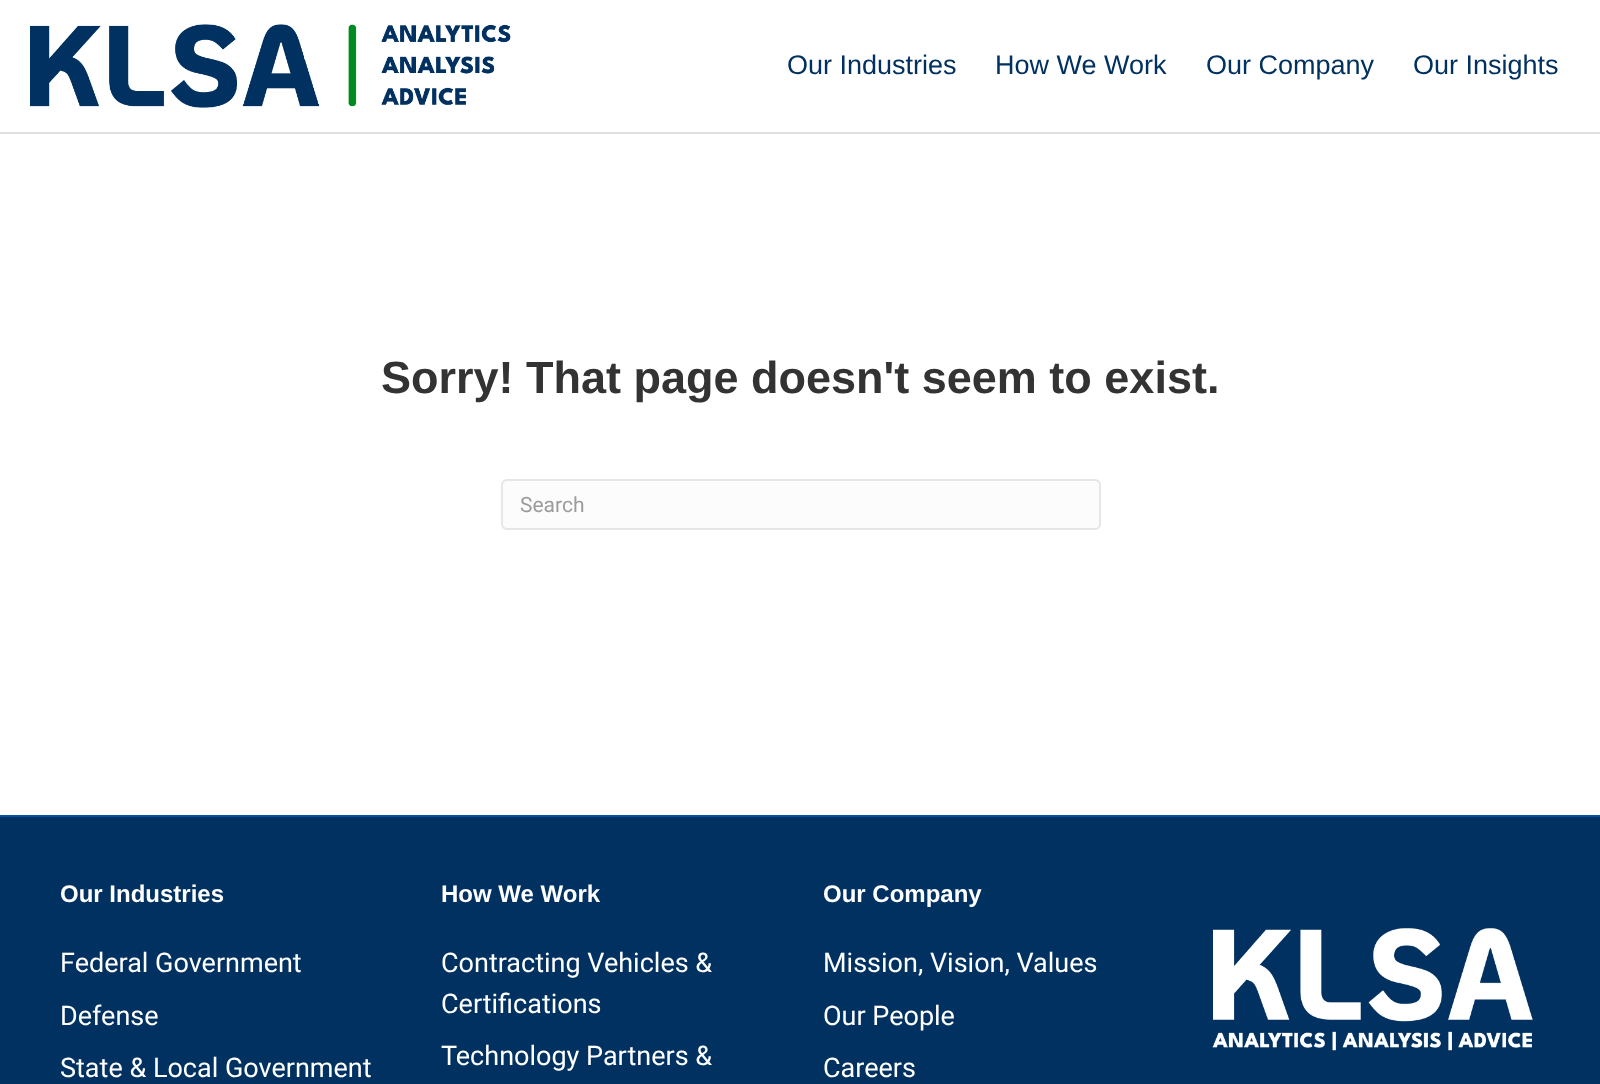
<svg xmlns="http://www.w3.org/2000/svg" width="1600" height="1084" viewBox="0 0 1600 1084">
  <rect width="100%" height="100%" fill="#ffffff"/>
  <rect x="0" y="132" width="1600" height="2" fill="#dedede"/>
  <image x="30" y="24" width="481" height="84" href="img1.png"/>
  <text x="787" y="74" font-family="Liberation Sans" font-size="27" fill="#003160">Our Industries</text>
  <text x="995" y="74" font-family="Liberation Sans" font-size="27" fill="#003160">How We Work</text>
  <text x="1206" y="74" font-family="Liberation Sans" font-size="27" fill="#003160">Our Company</text>
  <text x="1413" y="74" font-family="Liberation Sans" font-size="27" fill="#003160">Our Insights</text>
  <text x="381" y="393" font-family="Liberation Sans" font-size="45" font-weight="bold" fill="#333333">Sorry! That page doesn't seem to exist.</text>
  <rect x="502" y="480" width="598" height="49" rx="5" fill="#fcfcfc" stroke="#e6e6e6" stroke-width="2"/>
  <text x="520" y="512" font-family="Roboto" font-size="21" fill="#9b9b9b">Search</text>
  <rect x="0" y="817" width="1600" height="267" fill="#003160"/>
  <rect x="0" y="815" width="1600" height="2" fill="#0053a2"/>
  <text x="60" y="902" font-family="Liberation Sans" font-size="24" font-weight="bold" fill="#ffffff">Our Industries</text>
  <text x="60" y="972" font-family="Roboto" font-size="27" fill="#ffffff">Federal Government</text>
  <text x="60" y="1025" font-family="Roboto" font-size="27" fill="#ffffff">Defense</text>
  <text x="60" y="1077" font-family="Roboto" font-size="27" fill="#ffffff">State &amp; Local Government</text>
  <text x="441" y="902" font-family="Liberation Sans" font-size="24" font-weight="bold" fill="#ffffff">How We Work</text>
  <text x="441" y="972" font-family="Roboto" font-size="27" fill="#ffffff">Contracting Vehicles &amp;</text>
  <text x="441" y="1013" font-family="Roboto" font-size="27" fill="#ffffff">Certifications</text>
  <text x="441" y="1065" font-family="Roboto" font-size="27" fill="#ffffff">Technology Partners &amp;</text>
  <text x="823" y="902" font-family="Liberation Sans" font-size="24" font-weight="bold" fill="#ffffff">Our Company</text>
  <text x="823" y="972" font-family="Roboto" font-size="27" fill="#ffffff">Mission, Vision, Values</text>
  <text x="823" y="1025" font-family="Roboto" font-size="27" fill="#ffffff">Our People</text>
  <text x="823" y="1077" font-family="Roboto" font-size="27" fill="#ffffff">Careers</text>
  <image x="1212" y="928" width="321" height="123" href="img2.png"/>
</svg>
